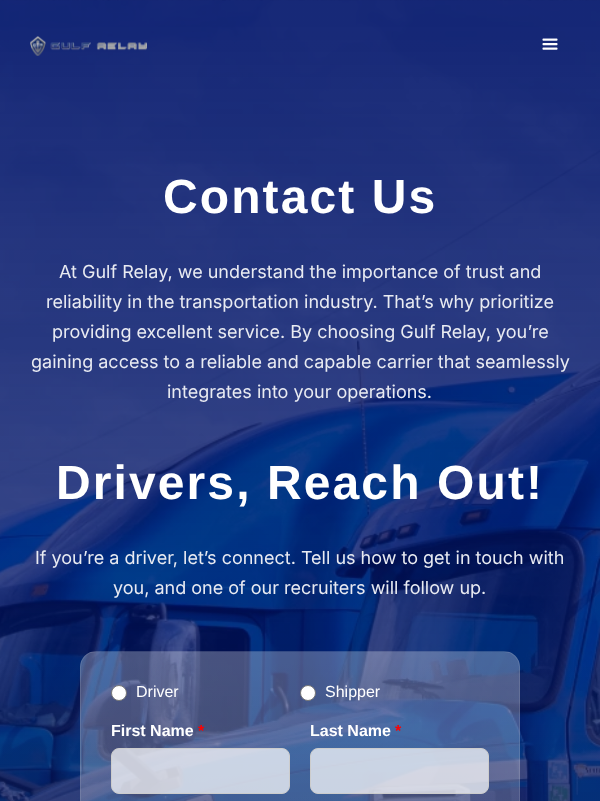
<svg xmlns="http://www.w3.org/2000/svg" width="600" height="801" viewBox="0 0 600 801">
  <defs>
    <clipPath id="clip1"><rect x="80" y="651" width="440" height="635" rx="16"/></clipPath>
    <linearGradient id="g1" gradientUnits="userSpaceOnUse" x1="300" y1="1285" x2="300" y2="652"><stop offset="0.01" stop-color="#ffffff" stop-opacity="0"/><stop offset="1" stop-color="#ffffff" stop-opacity="0.2"/></linearGradient>
  </defs>
  <rect width="100%" height="100%" fill="#ffffff"/>
  <image x="0" y="0" width="600" height="801" href="img3.png"/>
  <image x="30" y="36" width="117" height="20" href="img1.png"/>
  <image x="542" y="38" width="16" height="12" href="img2.png"/>
  <text x="163" y="213" font-family="Arimo" font-size="48" font-weight="bold" letter-spacing="2.1" fill="#ffffff">Contact Us</text>
  <text x="59" y="278" font-family="Inter" font-size="18" fill="#e9ebf2">At Gulf Relay, we understand the importance of trust and</text>
  <text x="46" y="308" font-family="Inter" font-size="18" fill="#e9ebf2">reliability in the transportation industry. That’s why prioritize</text>
  <text x="52" y="338" font-family="Inter" font-size="18" fill="#e9ebf2">providing excellent service. By choosing Gulf Relay, you’re</text>
  <text x="31" y="368" font-family="Inter" font-size="18" fill="#e9ebf2">gaining access to a reliable and capable carrier that seamlessly</text>
  <text x="167" y="398" font-family="Inter" font-size="18" fill="#e9ebf2">integrates into your operations.</text>
  <text x="56" y="499" font-family="Arimo" font-size="48" font-weight="bold" letter-spacing="2.1" fill="#ffffff">Drivers, Reach Out!</text>
  <text x="35" y="564" font-family="Inter" font-size="18" fill="#e9ebf2">If you’re a driver, let’s connect. Tell us how to get in touch with</text>
  <text x="113" y="594" font-family="Inter" font-size="18" fill="#e9ebf2">you, and one of our recruiters will follow up.</text>
  <rect x="80" y="651" width="440" height="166" rx="16" fill="#ffffff" fill-opacity="0.1"/>
  <g clip-path="url(#clip1)">
    <rect x="80" y="652" width="440" height="149" fill="url(#g1)"/>
  </g>
  <rect x="80.5" y="651.5" width="439" height="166" rx="15.5" fill="none" stroke="#e6e4ea" stroke-opacity="0.13"/>
  <circle cx="119" cy="693" r="7.5" fill="#ffffff" stroke="#767676"/>
  <text x="136" y="697" font-family="Arimo" font-size="16" fill="#ffffff">Driver</text>
  <circle cx="308" cy="693" r="7.5" fill="#ffffff" stroke="#767676"/>
  <text x="325" y="697" font-family="Arimo" font-size="16" fill="#ffffff">Shipper</text>
  <text x="111" y="736" font-family="Arimo" font-size="16" font-weight="bold" fill="#ffffff">First Name</text>
  <text x="198" y="736" font-family="Arimo" font-size="16" font-weight="bold" fill="#ff0000">*</text>
  <rect x="111.5" y="748.5" width="178" height="45" rx="7.5" fill="#ffffff" fill-opacity="0.72" stroke="#cccccc"/>
  <text x="310" y="736" font-family="Arimo" font-size="16" font-weight="bold" fill="#ffffff">Last Name</text>
  <text x="395" y="736" font-family="Arimo" font-size="16" font-weight="bold" fill="#ff0000">*</text>
  <rect x="310.5" y="748.5" width="178" height="45" rx="7.5" fill="#ffffff" fill-opacity="0.72" stroke="#cccccc"/>
</svg>
